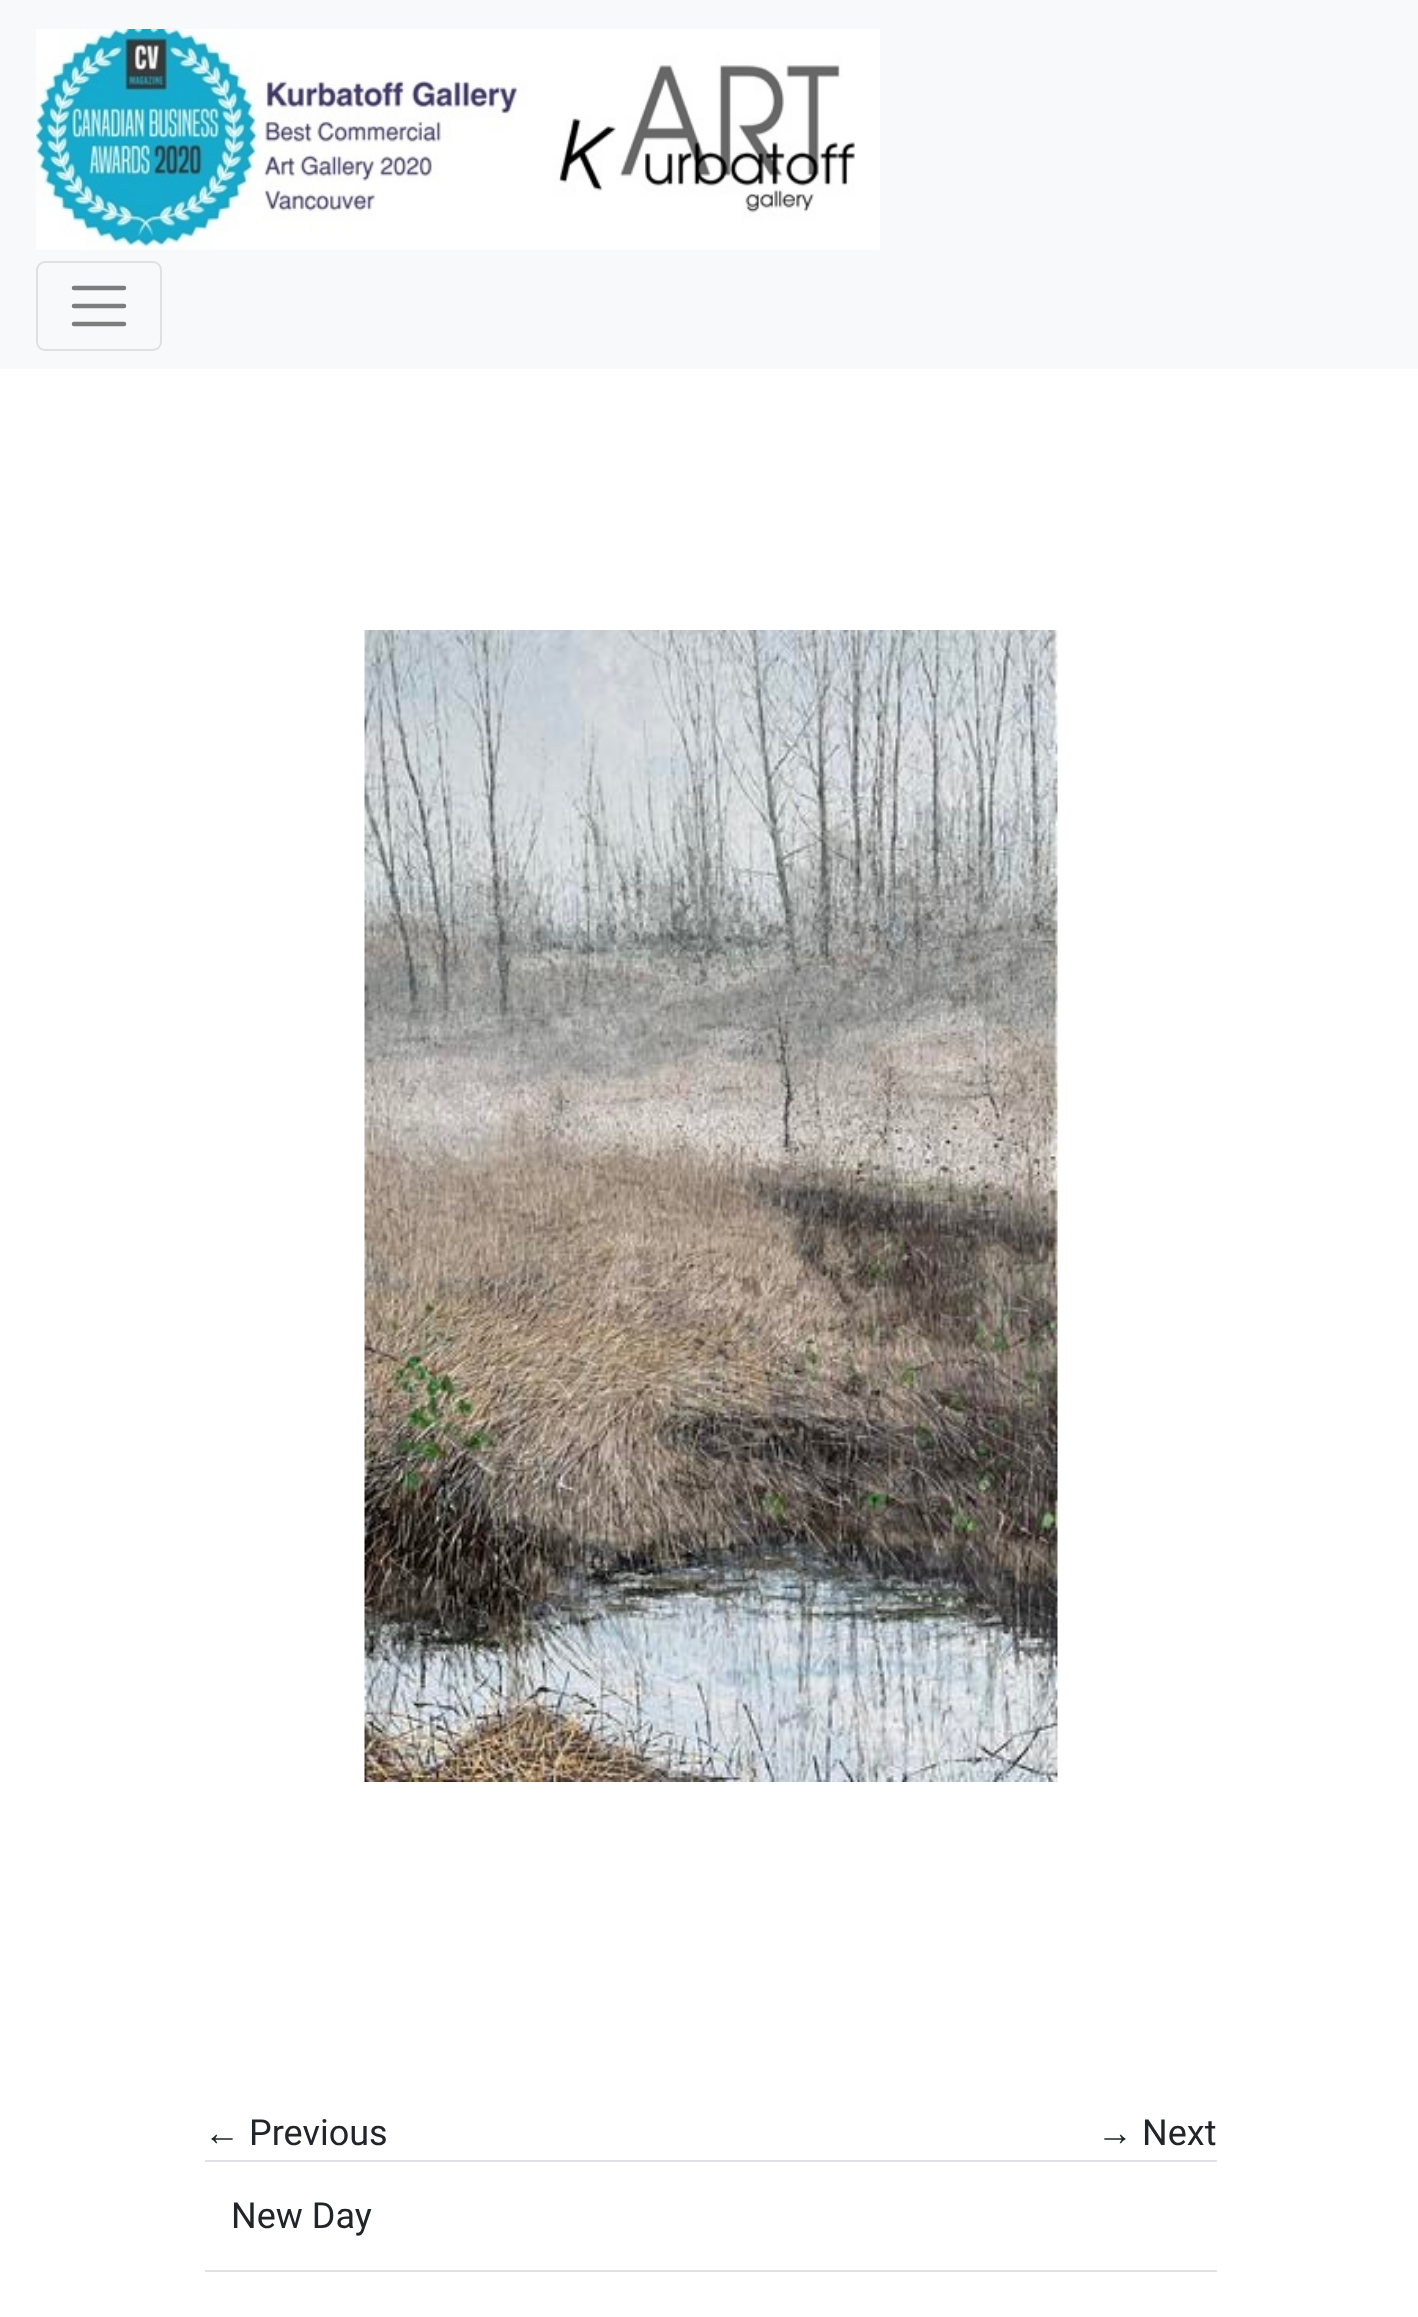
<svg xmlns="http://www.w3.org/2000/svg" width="1418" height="2317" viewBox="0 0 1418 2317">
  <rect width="100%" height="100%" fill="#ffffff"/>
  <rect x="0" y="0" width="1418" height="369" fill="#f8f9fa"/>
  <image x="36" y="29" width="844" height="221" href="img1.png"/>
  <rect x="37" y="262" width="124" height="88" rx="8" fill="none" stroke="#dfe0e1" stroke-width="2"/>
  <path d="M74 288H124M74 306H124M74 324H124" fill="none" stroke="#7c7d7d" stroke-width="4.5" stroke-linecap="round"/>
  <image x="364" y="630" width="694" height="1152" href="img2.png"/>
  <text x="204" y="2145" font-family="Liberation Sans" font-size="36" fill="#212529">←</text>
  <text x="249" y="2145" font-family="Roboto" font-size="36" fill="#212529">Previous</text>
  <text x="1097" y="2145" font-family="Liberation Sans" font-size="36" fill="#212529">→</text>
  <text x="1142" y="2145" font-family="Roboto" font-size="36" fill="#212529">Next</text>
  <rect x="205" y="2160" width="1012" height="2" fill="#dee2e6"/>
  <text x="231" y="2228" font-family="Roboto" font-size="36" fill="#212529">New Day</text>
  <rect x="205" y="2270" width="1012" height="2" fill="#dee2e6"/>
</svg>
